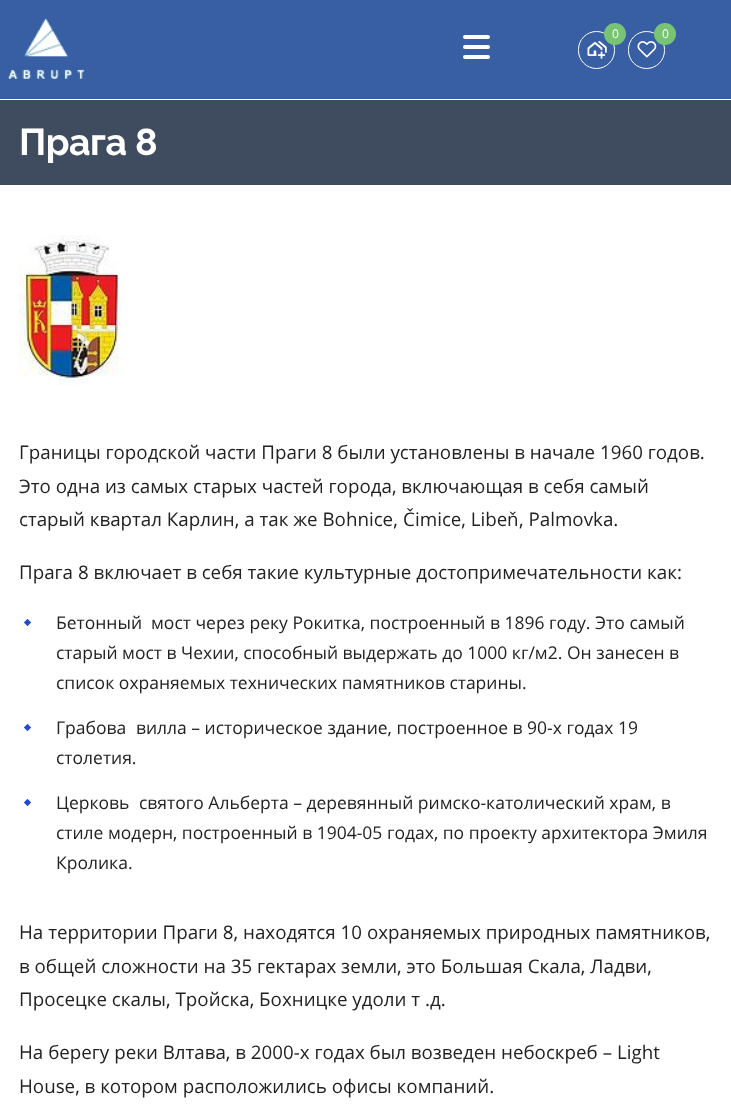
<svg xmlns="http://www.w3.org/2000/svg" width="731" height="1117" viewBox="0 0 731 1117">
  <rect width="100%" height="100%" fill="#ffffff"/>
  <rect x="0" y="0" width="731" height="99" fill="#385fa4"/>
  <image x="8" y="18" width="77" height="61" href="img1.png"/>
  <rect x="578.5" y="31.5" width="36" height="37" rx="18" fill="none" stroke="#ffffff"/>
  <image x="587" y="41" width="20" height="18" href="img2.png"/>
  <circle cx="615" cy="34" r="11" fill="#79c474"/>
  <text x="612" y="38" font-family="Open Sans" font-size="12" fill="#ffffff">0</text>
  <rect x="628.5" y="31.5" width="36" height="37" rx="18" fill="none" stroke="#ffffff"/>
  <image x="637" y="41" width="20" height="17" href="img3.png"/>
  <circle cx="665" cy="34" r="11" fill="#79c474"/>
  <text x="662" y="38" font-family="Open Sans" font-size="12" fill="#ffffff">0</text>
  <rect x="463" y="35" width="27" height="4" rx="2" fill="#ffffff"/>
  <rect x="463" y="45" width="27" height="4" rx="2" fill="#ffffff"/>
  <rect x="463" y="55" width="27" height="4" rx="2" fill="#ffffff"/>
  <rect x="0" y="100" width="731" height="85" fill="#3f4c5f"/>
  <text x="19" y="155" font-family="Raleway" font-size="37.5" font-weight="bold" letter-spacing="-0.5" fill="#ffffff">Прага 8</text>
  <image x="19" y="235" width="102" height="150" href="img4.png"/>
  <text x="19" y="459" font-family="Open Sans" font-size="18.75" fill="#222222">Границы городской части Праги 8 были установлены в начале 1960 годов.</text>
  <text x="19" y="493" font-family="Open Sans" font-size="18.75" fill="#222222">Это одна из самых старых частей города, включающая в себя самый</text>
  <text x="19" y="526" font-family="Open Sans" font-size="18.75" fill="#222222">старый квартал Карлин, а так же Bohnice,</text>
  <text x="403" y="526" font-family="'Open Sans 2'" font-size="18.75" fill="#222222">Č</text>
  <text x="415" y="526" font-family="Open Sans" font-size="18.75" fill="#222222">imice, Libe</text>
  <text x="507" y="526" font-family="'Open Sans 2'" font-size="18.75" fill="#222222">ň</text>
  <text x="519" y="526" font-family="Open Sans" font-size="18.75" fill="#222222">, Palmovka.</text>
  <text x="19" y="579" font-family="Open Sans" font-size="18.75" fill="#222222">Прага 8 включает в себя такие культурные достопримечательности как:</text>
  <path d="M27.5 619L31 622.5L27.5 626L24 622.5Z" fill="#234dd4"/>
  <path d="M27.5 620L30 622.5L27.5 625L25 622.5Z" fill="none" stroke="#234dd4" stroke-width="1.3"/>
  <text x="56" y="629" font-family="Open Sans" font-size="17.5" fill="#222222">Бетонный</text>
  <text x="151" y="629" font-family="Open Sans" font-size="17.5" fill="#222222">мост через реку Рокитка, построенный в 1896 году. Это самый</text>
  <text x="56" y="659" font-family="Open Sans" font-size="17.5" fill="#222222">старый мост в Чехии, способный выдержать до 1000 кг/м2. Он занесен в</text>
  <text x="56" y="689" font-family="Open Sans" font-size="17.5" fill="#222222">список охраняемых технических памятников старины.</text>
  <path d="M27.5 724L31 727.5L27.5 731L24 727.5Z" fill="#234dd4"/>
  <path d="M27.5 725L30 727.5L27.5 730L25 727.5Z" fill="none" stroke="#234dd4" stroke-width="1.3"/>
  <text x="56" y="734" font-family="Open Sans" font-size="17.5" fill="#222222">Грабова</text>
  <text x="136" y="734" font-family="Open Sans" font-size="17.5" fill="#222222">вилла – историческое здание, построенное в 90-х годах 19</text>
  <text x="56" y="764" font-family="Open Sans" font-size="17.5" fill="#222222">столетия.</text>
  <path d="M27.5 799L31 802.5L27.5 806L24 802.5Z" fill="#234dd4"/>
  <path d="M27.5 800L30 802.5L27.5 805L25 802.5Z" fill="none" stroke="#234dd4" stroke-width="1.3"/>
  <text x="56" y="809" font-family="Open Sans" font-size="17.5" fill="#222222">Церковь</text>
  <text x="139" y="809" font-family="Open Sans" font-size="17.5" fill="#222222">святого Альберта – деревянный римско-католический храм, в</text>
  <text x="56" y="839" font-family="Open Sans" font-size="17.5" fill="#222222">стиле модерн, построенный в 1904-05 годах, по проекту архитектора Эмиля</text>
  <text x="56" y="869" font-family="Open Sans" font-size="17.5" fill="#222222">Кролика.</text>
  <text x="19" y="939" font-family="Open Sans" font-size="18.75" fill="#222222">На территории Праги 8, находятся 10 охраняемых природных памятников,</text>
  <text x="19" y="973" font-family="Open Sans" font-size="18.75" fill="#222222">в общей сложности на 35 гектарах земли, это Большая Скала, Ладви,</text>
  <text x="19" y="1006" font-family="Open Sans" font-size="18.75" fill="#222222">Просецке скалы, Тройска, Бохницке удоли т .д.</text>
  <text x="19" y="1059" font-family="Open Sans" font-size="18.75" fill="#222222">На берегу реки Влтава, в 2000-х годах был возведен небоскреб – Light</text>
  <text x="19" y="1093" font-family="Open Sans" font-size="18.75" fill="#222222">House, в котором расположились офисы компаний.</text>
</svg>
